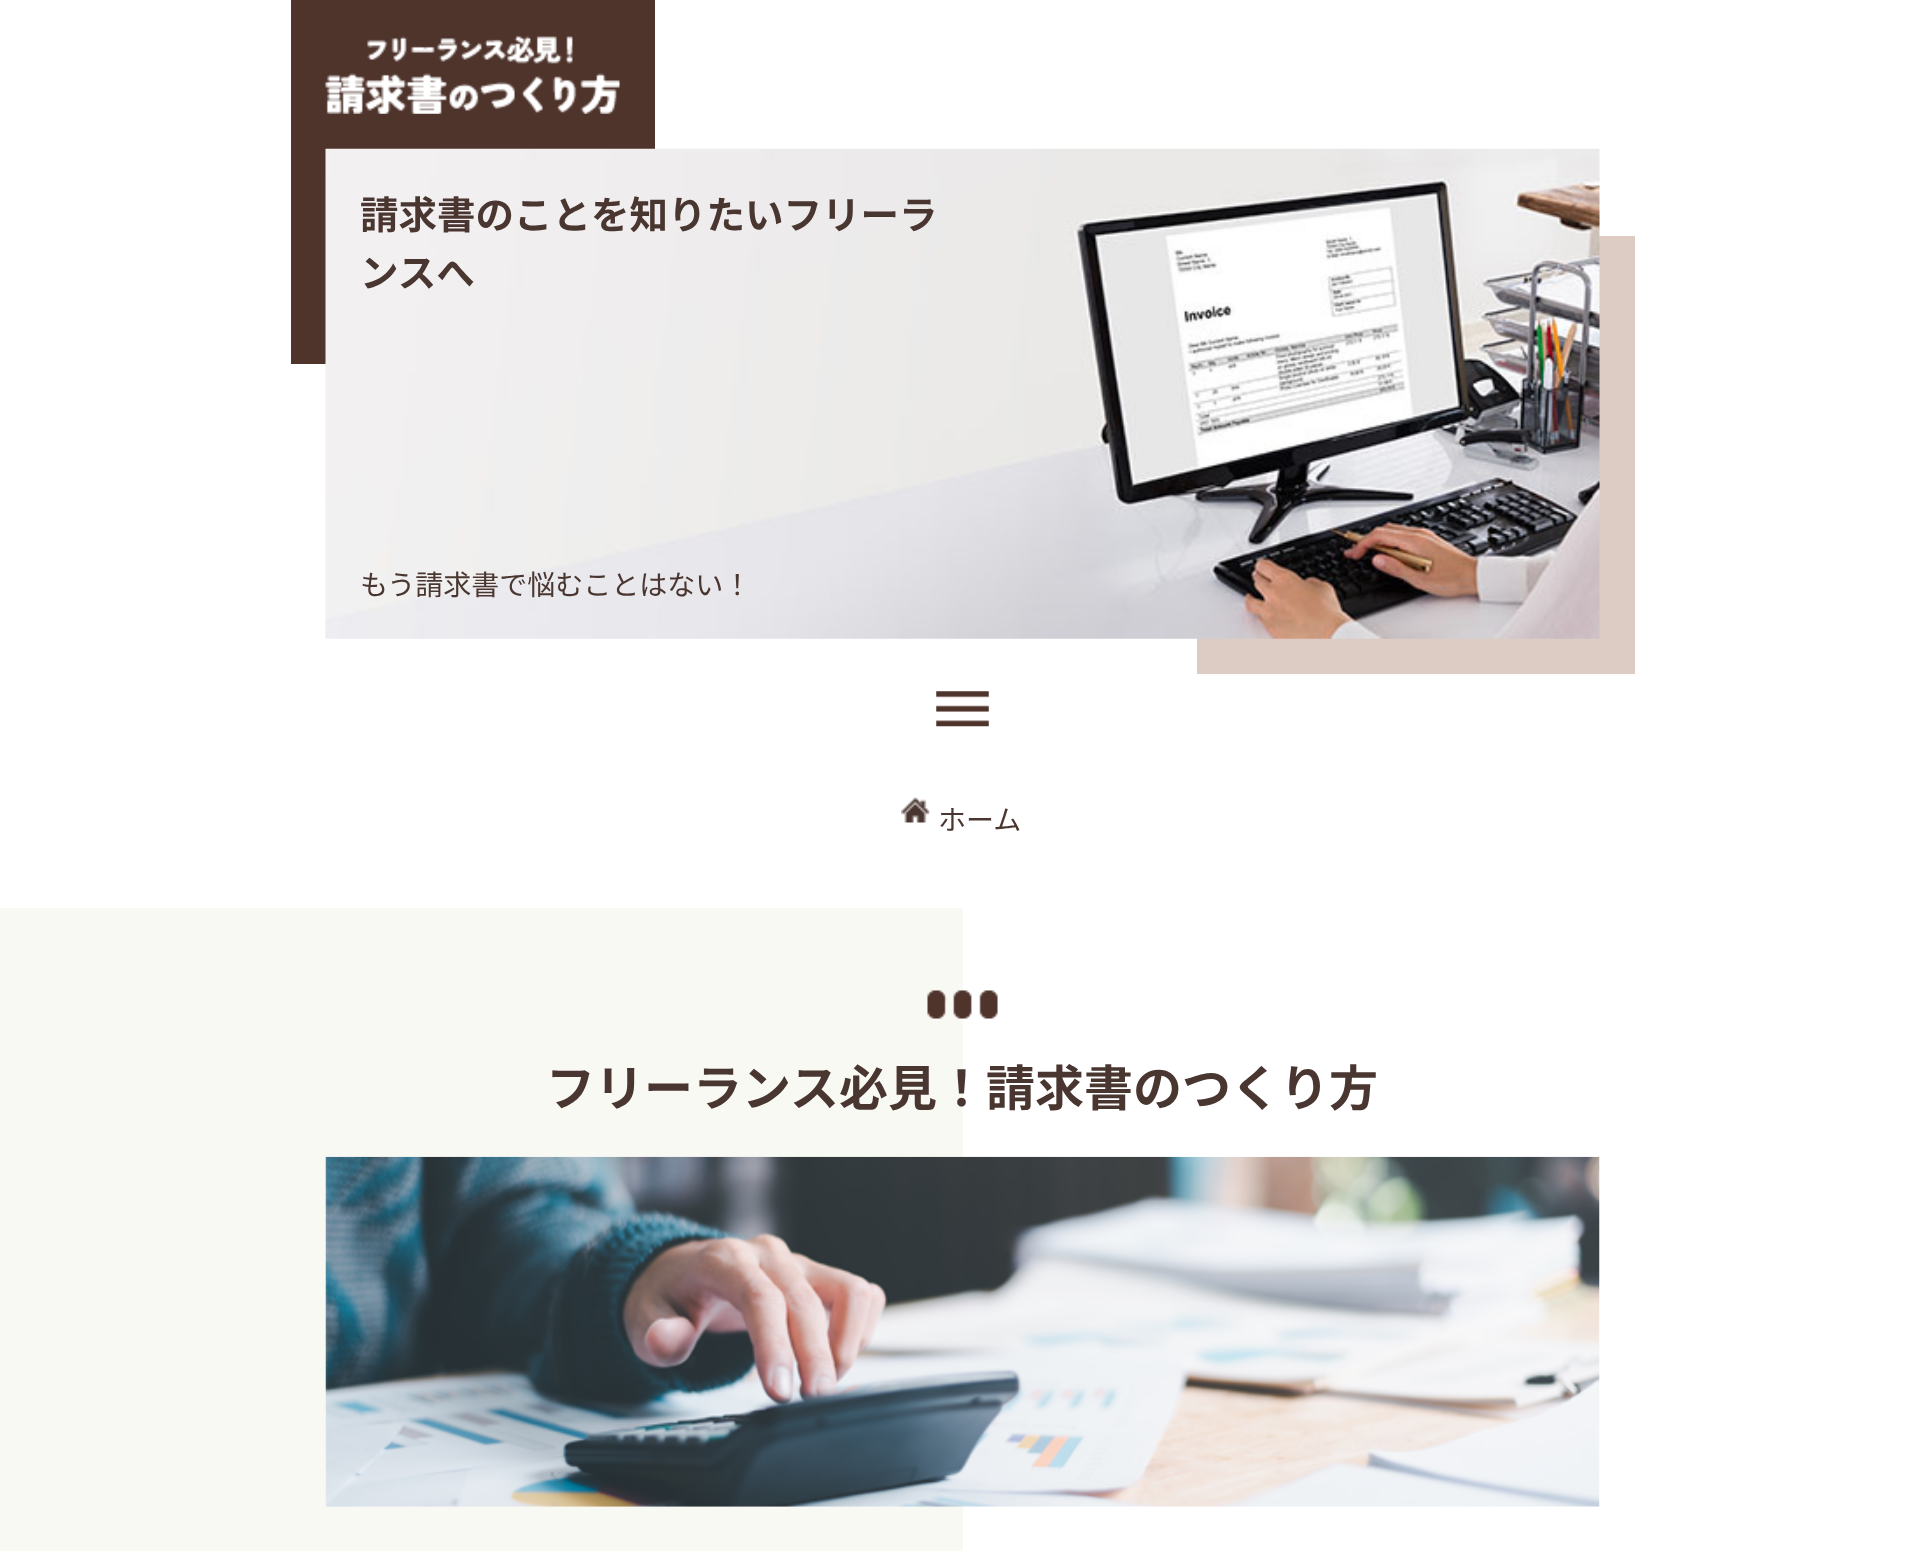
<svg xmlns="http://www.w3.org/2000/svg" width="1923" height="1551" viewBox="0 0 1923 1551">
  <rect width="100%" height="100%" fill="#ffffff"/>
  <rect x="291" y="0" width="364" height="364" fill="#4f342c"/>
  <image x="325" y="35" width="295" height="79" href="img1.png"/>
  <rect x="1197" y="236" width="438" height="438" fill="#dcccc4"/>
  <image x="325" y="148" width="1275" height="491" href="img2.png"/>
  <text x="360" y="229" font-family="Noto Sans CJK JP" font-size="38.5" font-weight="bold" fill="#4a3630">請求書のことを知りたいフリーラ</text>
  <text x="360" y="287" font-family="Noto Sans CJK JP" font-size="38.5" font-weight="bold" fill="#4a3630">ンスへ</text>
  <text x="360" y="595" font-family="Noto Sans CJK JP" font-size="28" fill="#4a3630">もう請求書で悩むことはない！</text>
  <image x="936" y="691" width="53" height="36" href="img3.png"/>
  <image x="901" y="797" width="29" height="26" href="img4.png"/>
  <text x="938" y="830" font-family="Noto Sans CJK JP" font-size="28" fill="#4a3630">ホーム</text>
  <rect x="0" y="908" width="963" height="643" fill="#f9f9f4"/>
  <image x="927" y="990" width="71" height="29" href="img5.png"/>
  <text x="546" y="1106" font-family="Noto Sans CJK JP" font-size="49" font-weight="bold" fill="#4a3630">フリーランス必見！請求書のつくり方</text>
  <image x="325" y="1156" width="1275" height="351" href="img6.png"/>
</svg>
